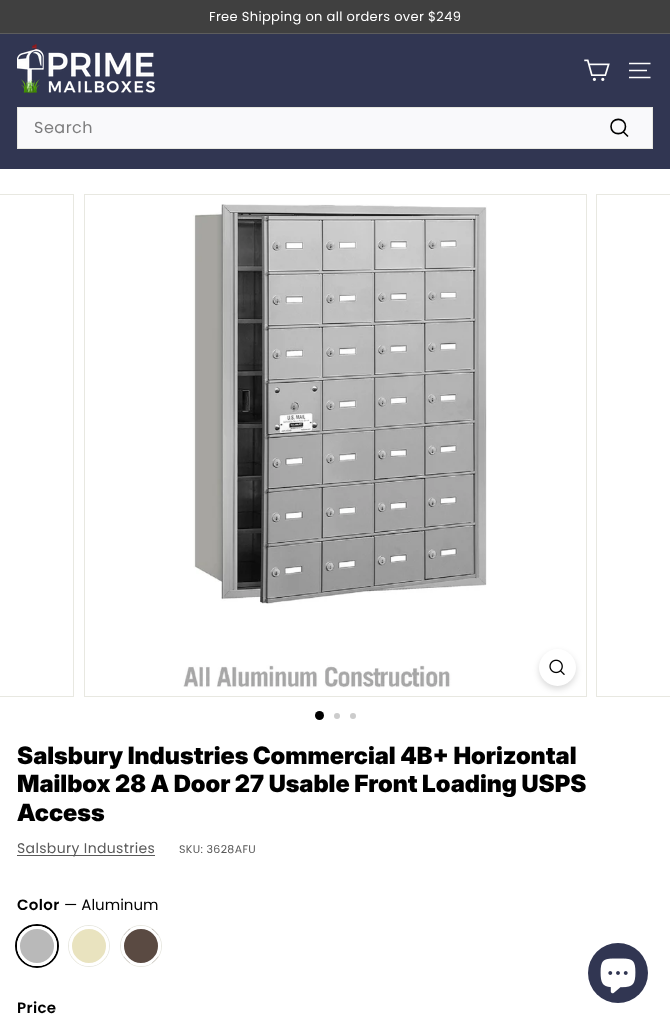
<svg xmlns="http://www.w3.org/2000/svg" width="670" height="1024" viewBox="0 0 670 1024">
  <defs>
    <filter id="blur1" x="-50%" y="-200%" width="200%" height="500%"><feGaussianBlur stdDeviation="3"/></filter>
  </defs>
  <rect width="100%" height="100%" fill="#ffffff"/>
  <rect x="0" y="0" width="670" height="33" fill="#404040"/>
  <text x="209" y="21" font-family="Poppins" font-size="13" letter-spacing="0.35" fill="#ffffff">Free Shipping on all orders over $249</text>
  <rect x="0" y="33" width="670" height="1" fill="#5d5d5d"/>
  <rect x="0" y="34" width="670" height="135" fill="#313652"/>
  <image x="17" y="44" width="138" height="49" href="img1.png"/>
  <image x="584" y="59" width="26" height="22" href="img2.png"/>
  <path d="M629 63.5H650.5M629 70.5H647M629 77.5H650.5" fill="none" stroke="#ffffff" stroke-width="1.7"/>
  <rect x="17.5" y="107.5" width="635" height="41" fill="#f9f9fb" stroke="#e8e8e1"/>
  <text x="34" y="133" font-family="Poppins" font-size="16" letter-spacing="0.5" fill="#7d7d7e">Search</text>
  <path d="M625.5 126.5C625.5 136 611 136 611 126.5C611 117 625.5 117 625.5 126.5ZM628 136.5L623.5 132" fill="none" stroke="#000000" stroke-width="1.6"/>
  <rect x="-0.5" y="194.5" width="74" height="502" fill="none" stroke="#e8e8e1"/>
  <rect x="84.5" y="194.5" width="502" height="502" fill="none" stroke="#e8e8e1"/>
  <image x="183" y="204" width="304" height="484" href="img3.png"/>
  <rect x="539" y="652" width="37" height="37" rx="18.5" fill="#000000" fill-opacity="0.15" filter="url(#blur1)"/>
  <circle cx="557.5" cy="667.5" r="18.5" fill="#ffffff"/>
  <image x="549" y="659" width="16" height="16" href="img4.png"/>
  <rect x="596.5" y="194.5" width="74" height="502" fill="none" stroke="#e8e8e1"/>
  <circle cx="319.5" cy="715.5" r="4.5" fill="#000000"/>
  <circle cx="337" cy="716" r="3" fill="#cccccc"/>
  <circle cx="353" cy="716" r="3" fill="#cccccc"/>
  <text x="17" y="764" font-family="Inter" font-size="23.9" font-weight="900" fill="#000000">Salsbury Industries Commercial 4B+ Horizontal</text>
  <text x="17" y="792" font-family="Inter" font-size="23.9" font-weight="900" fill="#000000">Mailbox 28 A Door 27 Usable Front Loading USPS</text>
  <text x="17" y="821" font-family="Inter" font-size="23.9" font-weight="900" fill="#000000">Access</text>
  <rect x="17" y="855" width="138" height="1" fill="#595959"/>
  <text x="17" y="853" font-family="Poppins" font-size="14" letter-spacing="0.35" fill="#595959">Salsbury Industries</text>
  <text x="179" y="853" font-family="Poppins" font-size="11" letter-spacing="0.35" fill="#595959">SKU: 3628AFU</text>
  <text x="17" y="910" font-family="Poppins" font-size="15" font-weight="600" letter-spacing="0.35" fill="#000000">Color</text>
  <text x="64" y="910" font-family="Poppins" font-size="15" fill="#000000">— Aluminum</text>
  <circle cx="37" cy="946" r="21" fill="none" stroke="#000000" stroke-width="2"/>
  <image x="20" y="929" width="34" height="34" href="img5.png"/>
  <circle cx="37" cy="946" r="18.5" fill="none" stroke="#ffffff" stroke-width="3"/>
  <circle cx="89" cy="946" r="20.5" fill="none" stroke="#e8e8e1"/>
  <image x="72" y="929" width="34" height="34" href="img6.png"/>
  <circle cx="89" cy="946" r="18.5" fill="none" stroke="#ffffff" stroke-width="3"/>
  <circle cx="141" cy="946" r="20.5" fill="none" stroke="#e8e8e1"/>
  <image x="124" y="929" width="34" height="34" href="img7.png"/>
  <circle cx="141" cy="946" r="18.5" fill="none" stroke="#ffffff" stroke-width="3"/>
  <text x="17" y="1013" font-family="Poppins" font-size="15" font-weight="600" letter-spacing="0.35" fill="#000000">Price</text>
  <circle cx="618" cy="973" r="30" fill="#313652"/>
  <image x="600" y="958" width="36" height="36" href="img8.png"/>
</svg>
